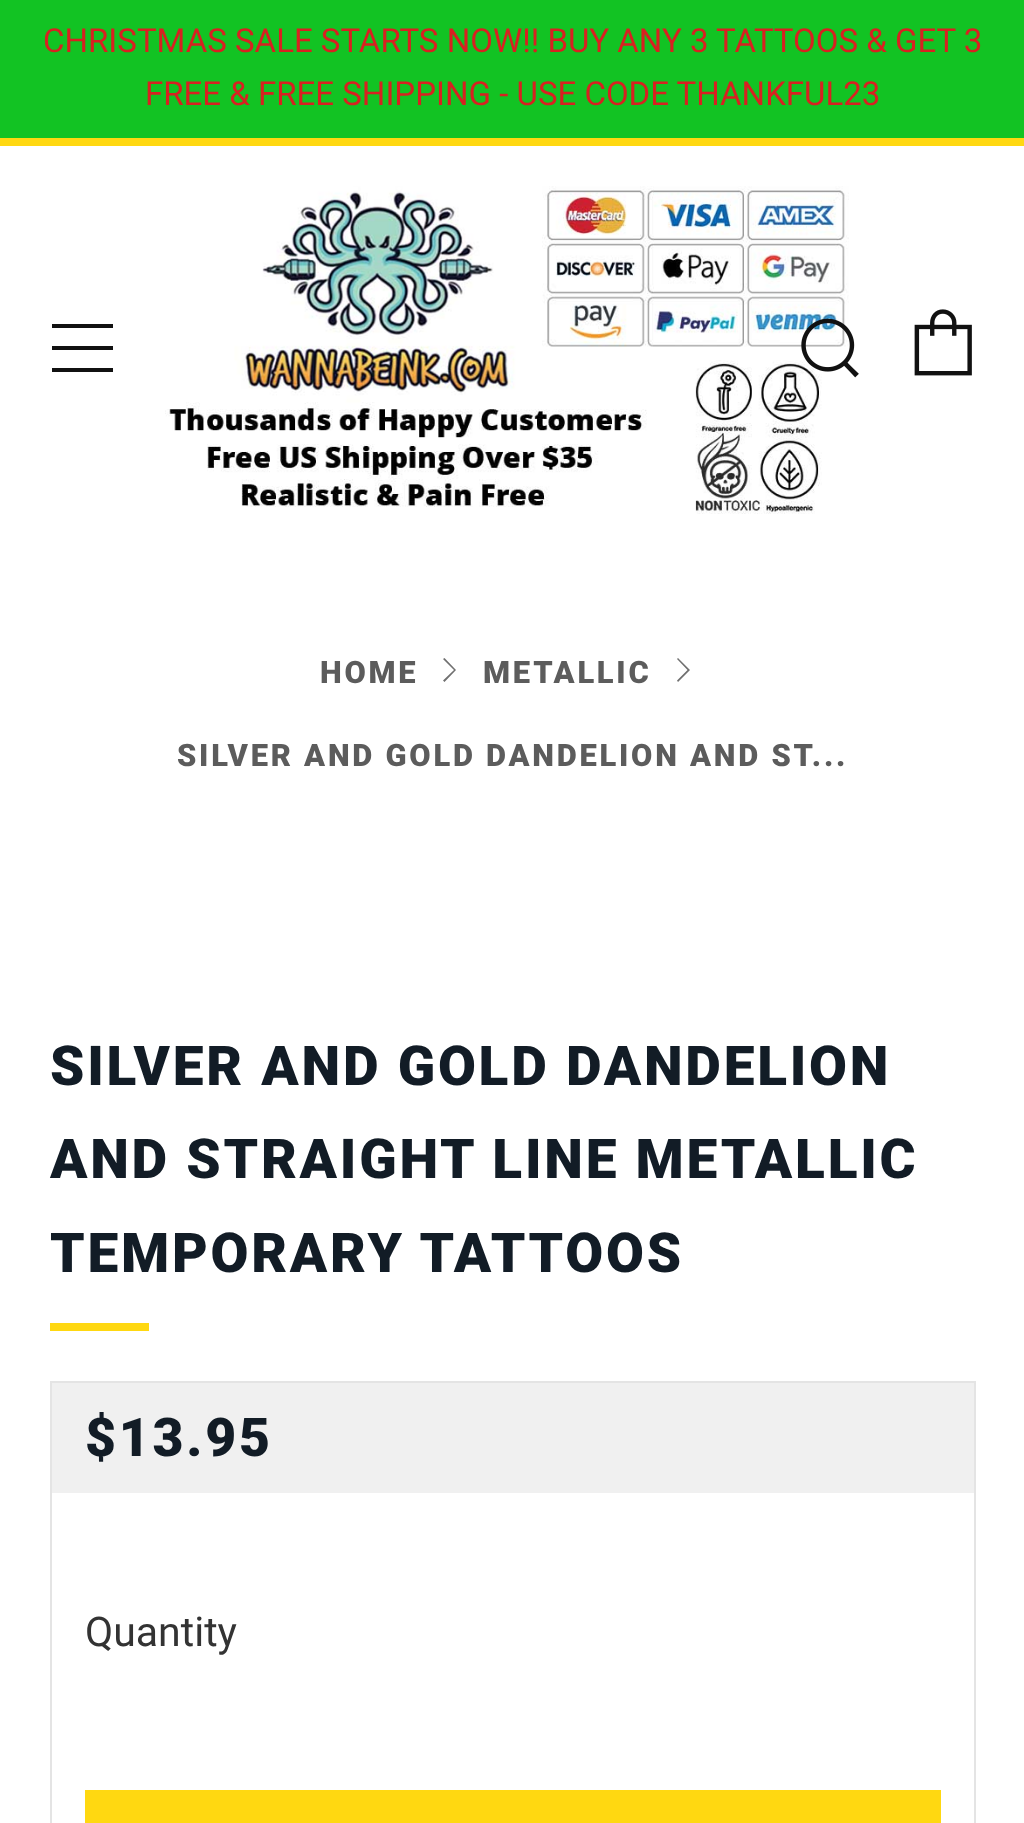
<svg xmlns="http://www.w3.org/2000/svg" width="1024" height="1823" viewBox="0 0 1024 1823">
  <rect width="100%" height="100%" fill="#ffffff"/>
  <rect x="0" y="0" width="1024" height="138" fill="#12c323"/>
  <text x="43" y="52" font-family="Roboto" font-size="33" fill="#d82121">CHRISTMAS SALE STARTS NOW!! BUY ANY 3 TATTOOS &amp; GET 3</text>
  <text x="145" y="105" font-family="Roboto" font-size="33" fill="#d82121">FREE &amp; FREE SHIPPING - USE CODE THANKFUL23</text>
  <rect x="0" y="138" width="1024" height="8" fill="#ffd811"/>
  <image x="165" y="186" width="684" height="328" href="img1.png"/>
  <image x="914" y="309" width="58" height="67" href="img2.png"/>
  <path d="M52 328H113V324H52ZM52 372H113V368H52ZM52 350H113V346H52Z" fill="#111111"/>
  <image x="801" y="318" width="58" height="60" href="img3.png"/>
  <text x="320" y="683" font-family="Roboto" font-size="30.9" font-weight="900" letter-spacing="2.75" fill="#5c5c5c">HOME</text>
  <path d="M443 680.5L444.5 682L456 670L444.5 658L443 659L454 670Z" fill="#707070"/>
  <text x="483" y="683" font-family="Roboto" font-size="30.9" font-weight="900" letter-spacing="2.75" fill="#5c5c5c">METALLIC</text>
  <path d="M677 680.5L678 682L690 670L678 658L677 659L687.5 670Z" fill="#707070"/>
  <text x="177" y="766" font-family="Roboto" font-size="30.9" font-weight="900" letter-spacing="2.75" fill="#5c5c5c">SILVER AND GOLD DANDELION AND ST...</text>
  <text x="50" y="1085" font-family="Roboto" font-size="55" font-weight="900" letter-spacing="2.75" fill="#121c26">SILVER AND GOLD DANDELION</text>
  <text x="50" y="1178" font-family="Roboto" font-size="55" font-weight="900" letter-spacing="2.75" fill="#121c26">AND STRAIGHT LINE METALLIC</text>
  <text x="50" y="1272" font-family="Roboto" font-size="55" font-weight="900" letter-spacing="2.75" fill="#121c26">TEMPORARY TATTOOS</text>
  <rect x="50" y="1323" width="99" height="8" fill="#ffd811"/>
  <rect x="51.5" y="1382.5" width="923" height="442" fill="none" stroke="#e4e4e4" stroke-width="3"/>
  <rect x="52" y="1383" width="922" height="110" fill="#f0f0f0"/>
  <text x="85" y="1456" font-family="Roboto" font-size="53.5" font-weight="900" letter-spacing="2.75" fill="#121c26">$13.95</text>
  <rect x="52" y="1493" width="922" height="330" fill="#ffffff"/>
  <text x="85" y="1646" font-family="Roboto" font-size="41" fill="#333333">Quantity</text>
  <rect x="85" y="1790" width="856" height="33" fill="#ffd811"/>
</svg>
